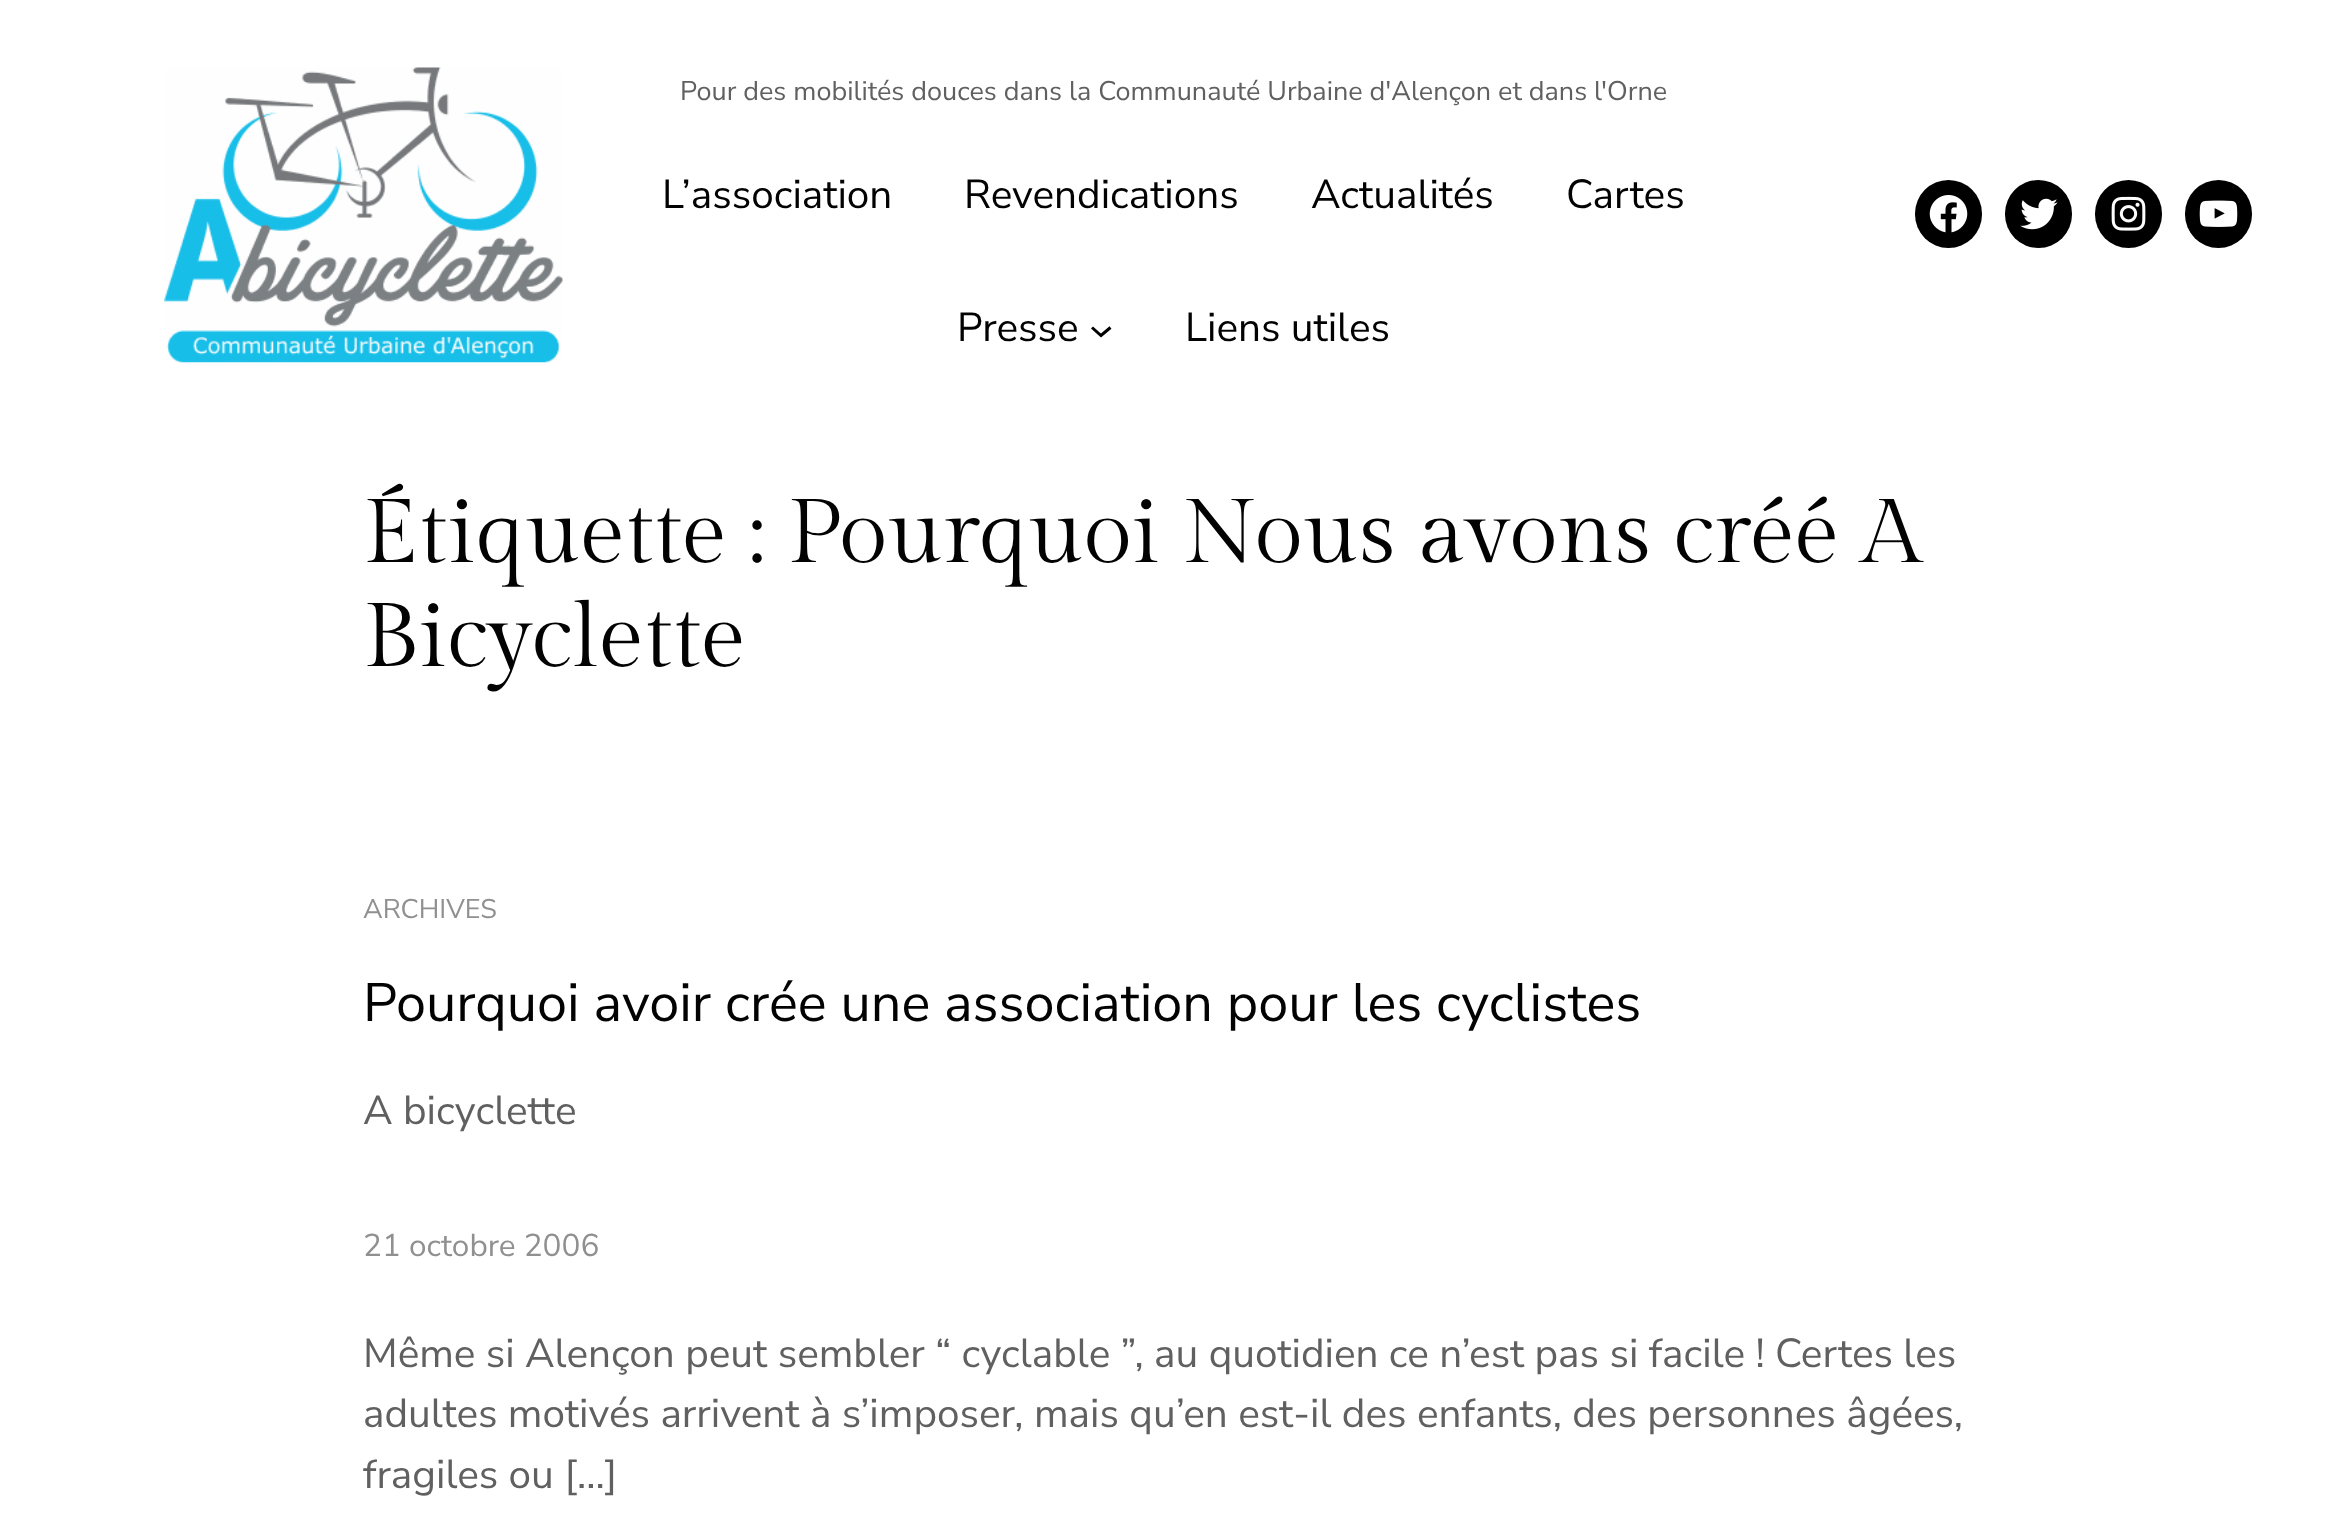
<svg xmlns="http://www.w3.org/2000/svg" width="2346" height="1534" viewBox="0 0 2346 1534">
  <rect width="100%" height="100%" fill="#ffffff"/>
  <image x="164" y="67" width="399" height="296" href="img1.png"/>
  <text x="680" y="100" font-family="Nunito Sans" font-size="27" fill="#606060">Pour des mobilités douces dans la Communauté Urbaine d'Alençon et dans l'Orne</text>
  <text x="662" y="208" font-family="Nunito Sans" font-size="40.5" fill="#020202">L’association</text>
  <text x="964" y="208" font-family="Nunito Sans" font-size="40.5" fill="#020202">Revendications</text>
  <text x="1311" y="208" font-family="Nunito Sans" font-size="40.5" fill="#020202">Actualités</text>
  <text x="1566" y="208" font-family="Nunito Sans" font-size="40.5" fill="#020202">Cartes</text>
  <text x="957" y="341" font-family="Nunito Sans" font-size="40.5" fill="#020202">Presse</text>
  <path d="M1092 327.5L1101 335.5L1110.5 327.5" fill="none" stroke="#000000" stroke-width="3"/>
  <text x="1185" y="341" font-family="Nunito Sans" font-size="40.5" fill="#020202">Liens utiles</text>
  <rect x="1915" y="180" width="67" height="68" rx="33.5" fill="#000000"/>
  <image x="1929" y="195" width="39" height="38" href="img2.png"/>
  <rect x="2005" y="180" width="67" height="68" rx="33.5" fill="#000000"/>
  <image x="2020" y="198" width="38" height="32" href="img3.png"/>
  <rect x="2095" y="180" width="67" height="68" rx="33.5" fill="#000000"/>
  <image x="2111" y="196" width="35" height="35" href="img4.png"/>
  <rect x="2185" y="180" width="67" height="68" rx="33.5" fill="#000000"/>
  <image x="2199" y="200" width="39" height="27" href="img5.png"/>
  <text x="363" y="562" font-family="Gilda Display" font-size="90" fill="#020202">Étiquette : Pourquoi Nous avons créé A</text>
  <text x="363" y="666" font-family="Gilda Display" font-size="90" fill="#020202">Bicyclette</text>
  <text x="363" y="918" font-family="Nunito Sans" font-size="27" fill="#909090">ARCHIVES</text>
  <text x="363" y="1021" font-family="Nunito Sans" font-size="54" fill="#020202">Pourquoi avoir crée une association pour les cyclistes</text>
  <text x="363" y="1124" font-family="Nunito Sans" font-size="40.5" fill="#606060">A bicyclette</text>
  <text x="363" y="1256" font-family="Nunito Sans" font-size="31.5" fill="#909090">21 octobre 2006</text>
  <text x="363" y="1367" font-family="Nunito Sans" font-size="40.5" fill="#606060">Même si Alençon peut sembler “ cyclable ”, au quotidien ce n’est pas si facile ! Certes les</text>
  <text x="363" y="1427" font-family="Nunito Sans" font-size="40.5" fill="#606060">adultes motivés arrivent à s’imposer, mais qu’en est-il des enfants, des personnes âgées,</text>
  <text x="363" y="1488" font-family="Nunito Sans" font-size="40.5" fill="#606060">fragiles ou […]</text>
</svg>
